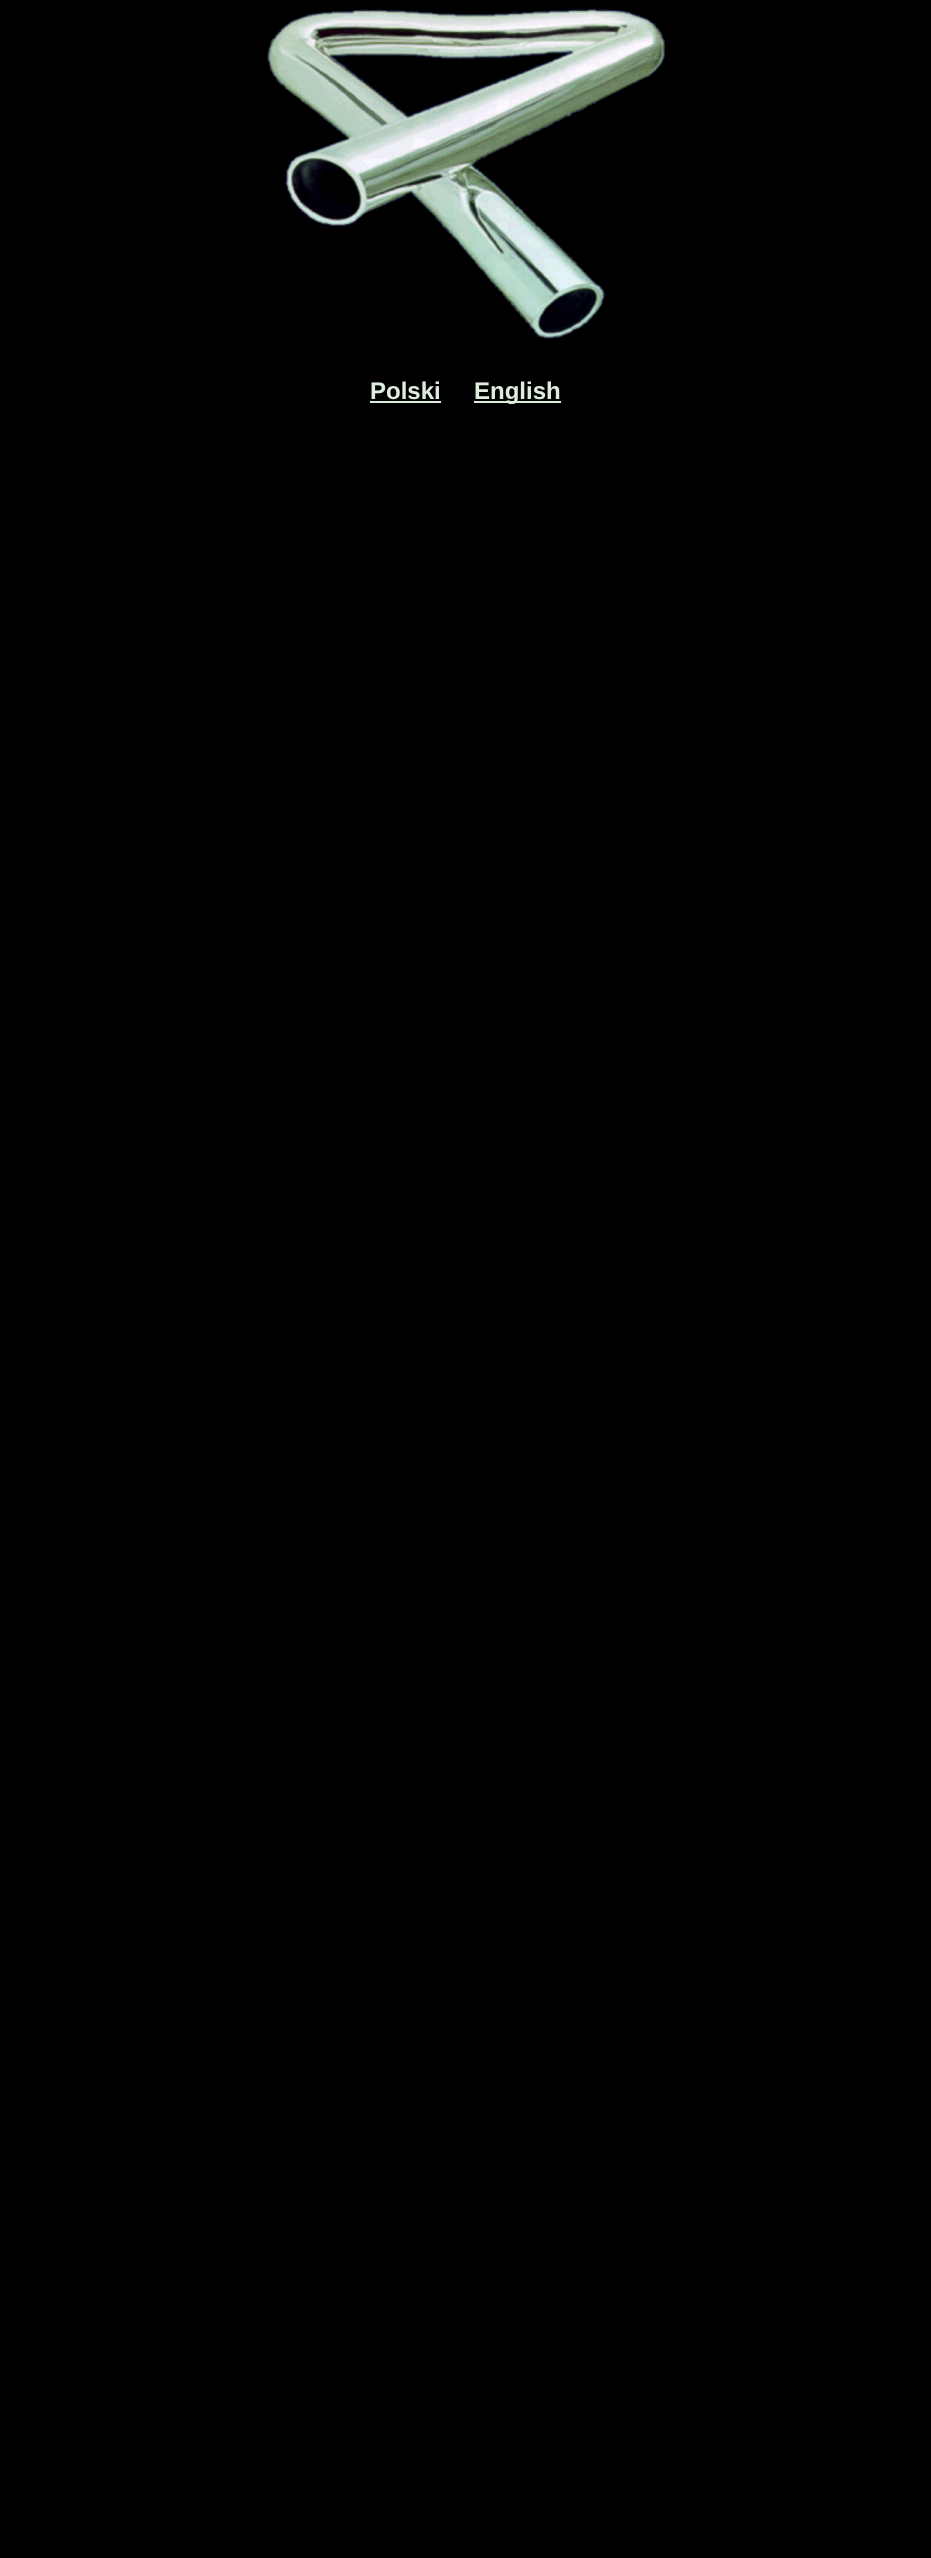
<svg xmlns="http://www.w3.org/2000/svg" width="931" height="2558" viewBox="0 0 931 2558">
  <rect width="100%" height="100%" fill="#000000"/>
  <image x="267" y="9" width="398" height="330" href="img1.png"/>
  <text x="370" y="399" font-family="Liberation Sans" font-size="24" font-weight="bold" fill="#deeede">Polski</text>
  <rect x="370" y="401" width="71" height="2" fill="#deeede"/>
  <rect x="474" y="401" width="87" height="2" fill="#deeede"/>
  <text x="474" y="399" font-family="Liberation Sans" font-size="24" font-weight="bold" fill="#deeede">English</text>
</svg>
